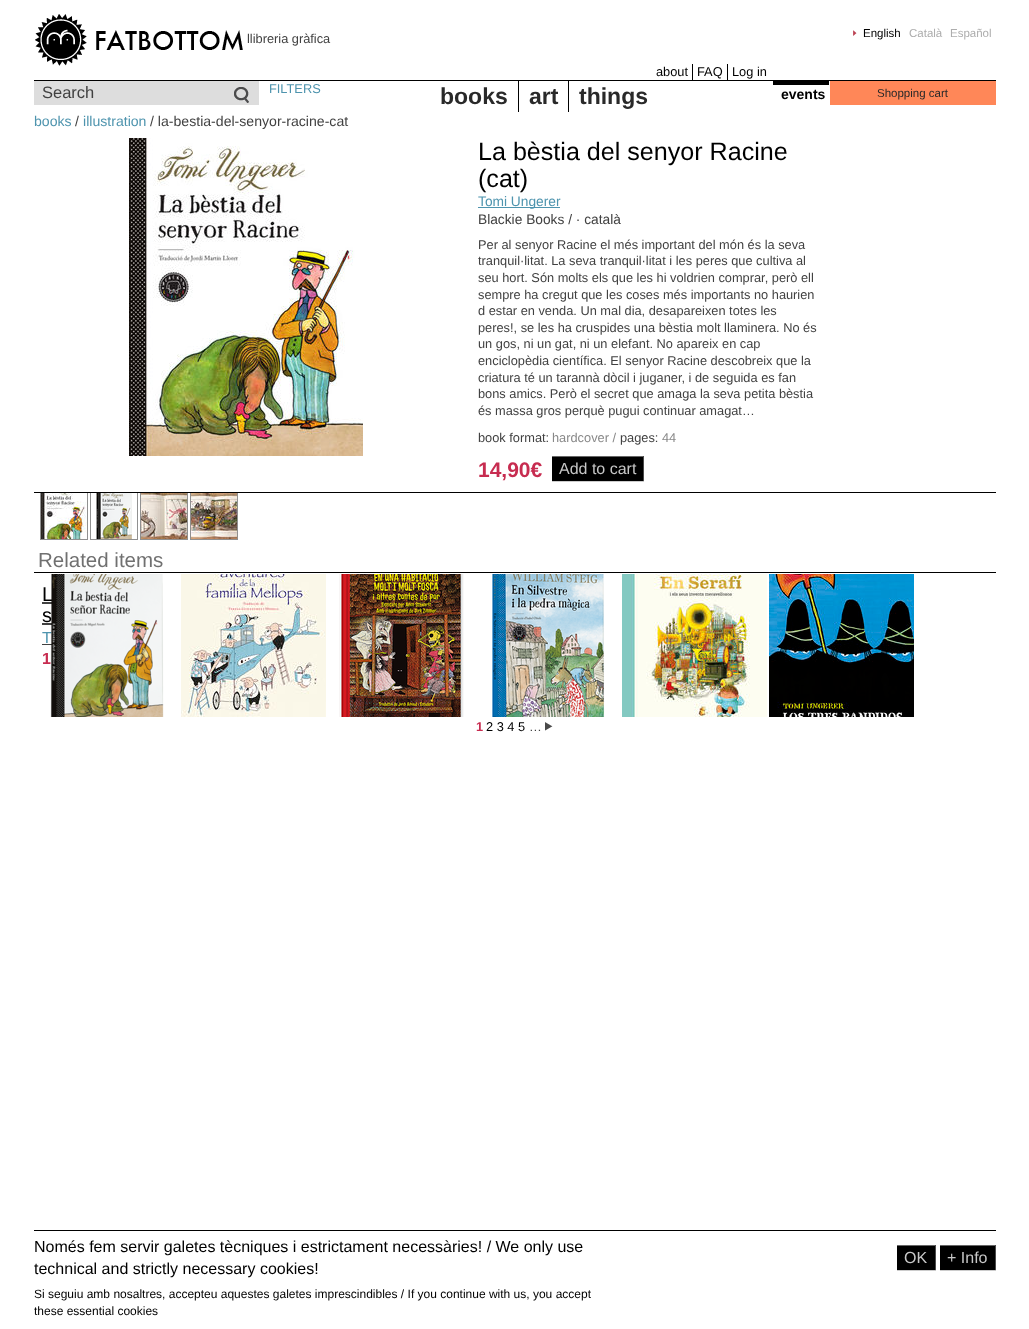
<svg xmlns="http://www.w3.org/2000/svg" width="1029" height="1329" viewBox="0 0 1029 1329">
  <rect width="100%" height="100%" fill="#ffffff"/>
  <rect x="34" y="80" width="962" height="1" fill="#000000"/>
  <image x="35" y="14" width="208" height="52" href="img1.png"/>
  <text x="247" y="43" font-family="Liberation Sans" font-size="12.8" fill="#414141">llibreria gràfica</text>
  <image x="853" y="30" width="4" height="6" href="img2.png"/>
  <text x="863" y="37" font-family="Liberation Sans" font-size="11.5" fill="#000000">English</text>
  <text x="909" y="37" font-family="Liberation Sans" font-size="11.5" fill="#adadad">Català</text>
  <text x="950" y="37" font-family="Liberation Sans" font-size="11.5" fill="#adadad">Español</text>
  <rect x="692" y="64" width="1" height="17" fill="#000000"/>
  <text x="656" y="76" font-family="Liberation Sans" font-size="12.8" fill="#000000">about</text>
  <rect x="727" y="64" width="1" height="17" fill="#000000"/>
  <text x="697" y="76" font-family="Liberation Sans" font-size="12.8" fill="#000000">FAQ</text>
  <text x="732" y="76" font-family="Liberation Sans" font-size="12.8" fill="#000000">Log in</text>
  <rect x="34" y="81" width="225" height="24" fill="#dddddd"/>
  <text x="42" y="98" font-family="Liberation Sans" font-size="16.5" fill="#414141">Search</text>
  <image x="234" y="87" width="15" height="16" href="img3.png"/>
  <text x="269" y="93" font-family="Liberation Sans" font-size="12.8" fill="#4e94ae">FILTERS</text>
  <rect x="518" y="81" width="1" height="31" fill="#000000"/>
  <text x="440" y="104" font-family="Liberation Sans" font-size="23" font-weight="bold" fill="#292929">books</text>
  <rect x="568" y="81" width="1" height="31" fill="#000000"/>
  <text x="529" y="104" font-family="Liberation Sans" font-size="23" font-weight="bold" fill="#292929">art</text>
  <text x="579" y="104" font-family="Liberation Sans" font-size="23" font-weight="bold" fill="#292929">things</text>
  <rect x="773" y="81" width="56" height="4" fill="#000000"/>
  <text x="781" y="99" font-family="Liberation Sans" font-size="14" font-weight="bold" fill="#000000">events</text>
  <rect x="830" y="81" width="166" height="24" fill="#ff8758"/>
  <text x="877" y="97" font-family="Liberation Sans" font-size="11.5" fill="#292929">Shopping cart</text>
  <text x="34" y="126" font-family="Liberation Sans" font-size="14.1" fill="#4e94ae">books</text>
  <text x="75" y="126" font-family="Liberation Sans" font-size="14.1" fill="#414141">/</text>
  <text x="83" y="126" font-family="Liberation Sans" font-size="14.1" fill="#4e94ae">illustration</text>
  <text x="150" y="126" font-family="Liberation Sans" font-size="14.1" fill="#414141">/ la-bestia-del-senyor-racine-cat</text>
  <image x="129" y="138" width="234" height="318" href="img4.png"/>
  <text x="478" y="160" font-family="Liberation Sans" font-size="25.1" fill="#000000">La bèstia del senyor Racine</text>
  <text x="478" y="187" font-family="Liberation Sans" font-size="25.1" fill="#000000">(cat)</text>
  <rect x="478" y="207" width="82" height="1" fill="#4e94ae"/>
  <text x="478" y="206" font-family="Liberation Sans" font-size="13.75" fill="#4e94ae">Tomi Ungerer</text>
  <text x="478" y="224" font-family="Liberation Sans" font-size="13.75" fill="#414141">Blackie Books / · català</text>
  <text x="478" y="249" font-family="Liberation Sans" font-size="12.8" fill="#414141">Per al senyor Racine el més important del món és la seva</text>
  <text x="478" y="265" font-family="Liberation Sans" font-size="12.8" fill="#414141">tranquil·litat. La seva tranquil·litat i les peres que cultiva al</text>
  <text x="478" y="282" font-family="Liberation Sans" font-size="12.8" fill="#414141">seu hort. Són molts els que les hi voldrien comprar, però ell</text>
  <text x="478" y="299" font-family="Liberation Sans" font-size="12.8" fill="#414141">sempre ha cregut que les coses més importants no haurien</text>
  <text x="478" y="315" font-family="Liberation Sans" font-size="12.8" fill="#414141">d estar en venda. Un mal dia, desapareixen totes les</text>
  <text x="478" y="332" font-family="Liberation Sans" font-size="12.8" fill="#414141">peres!, se les ha cruspides una bèstia molt llaminera. No és</text>
  <text x="478" y="348" font-family="Liberation Sans" font-size="12.8" fill="#414141">un gos, ni un gat, ni un elefant. No apareix en cap</text>
  <text x="478" y="365" font-family="Liberation Sans" font-size="12.8" fill="#414141">enciclopèdia científica. El senyor Racine descobreix que la</text>
  <text x="478" y="382" font-family="Liberation Sans" font-size="12.8" fill="#414141">criatura té un tarannà dòcil i juganer, i de seguida es fan</text>
  <text x="478" y="398" font-family="Liberation Sans" font-size="12.8" fill="#414141">bons amics. Però el secret que amaga la seva petita bèstia</text>
  <text x="478" y="415" font-family="Liberation Sans" font-size="12.8" fill="#414141">és massa gros perquè pugui continuar amagat…</text>
  <text x="478" y="442" font-family="Liberation Sans" font-size="12.8" fill="#414141">book format:</text>
  <text x="552" y="442" font-family="Liberation Sans" font-size="12.8" fill="#888888">hardcover /</text>
  <text x="620" y="442" font-family="Liberation Sans" font-size="12.8" fill="#414141">pages:</text>
  <text x="662" y="442" font-family="Liberation Sans" font-size="12.8" fill="#888888">44</text>
  <text x="478" y="477" font-family="Liberation Sans" font-size="21" font-weight="bold" fill="#c72c50">14,90€</text>
  <rect x="552" y="457" width="91" height="24" fill="#000000"/>
  <rect x="552" y="456" width="92" height="1" fill="#666666"/>
  <rect x="643" y="456" width="1" height="26" fill="#4b4b4b"/>
  <rect x="552" y="481" width="92" height="1" fill="#cccccc"/>
  <text x="559" y="474" font-family="Liberation Sans" font-size="16" fill="#c7c7c7">Add to cart</text>
  <rect x="34" y="492" width="962" height="1" fill="#000000"/>
  <rect x="87" y="493" width="1" height="47" fill="#909090"/>
  <rect x="40" y="539" width="48" height="1" fill="#909090"/>
  <rect x="40" y="493" width="1" height="47" fill="#909090"/>
  <image x="41" y="493" width="46" height="46" href="img5.png"/>
  <rect x="137" y="493" width="1" height="47" fill="#909090"/>
  <rect x="90" y="539" width="48" height="1" fill="#909090"/>
  <rect x="90" y="493" width="1" height="47" fill="#909090"/>
  <image x="96" y="493" width="36" height="46" href="img6.png"/>
  <rect x="187" y="493" width="1" height="47" fill="#909090"/>
  <rect x="140" y="539" width="48" height="1" fill="#909090"/>
  <rect x="140" y="493" width="1" height="47" fill="#909090"/>
  <image x="141" y="493" width="46" height="46" href="img7.png"/>
  <rect x="237" y="493" width="1" height="47" fill="#909090"/>
  <rect x="190" y="539" width="48" height="1" fill="#909090"/>
  <rect x="190" y="493" width="1" height="47" fill="#909090"/>
  <image x="191" y="493" width="46" height="46" href="img8.png"/>
  <rect x="34" y="572" width="962" height="1" fill="#000000"/>
  <text x="38" y="567" font-family="Liberation Sans" font-size="20.5" fill="#707070">Related items</text>
  <text x="42" y="601" font-family="Liberation Sans" font-size="20" fill="#000000">L</text>
  <rect x="42" y="602" width="10" height="2" fill="#414141"/>
  <text x="42" y="622" font-family="Liberation Sans" font-size="20" fill="#000000">s</text>
  <rect x="42" y="623" width="10" height="2" fill="#414141"/>
  <text x="42" y="643" font-family="Liberation Sans" font-size="16" fill="#4e94ae">T</text>
  <rect x="42" y="644" width="10" height="1" fill="#414141"/>
  <text x="42" y="664" font-family="Liberation Sans" font-size="16" font-weight="bold" fill="#c72c50">1</text>
  <image x="50" y="574" width="114" height="143" href="img9.png"/>
  <image x="181" y="574" width="145" height="143" href="img10.png"/>
  <image x="335" y="574" width="129" height="143" href="img11.png"/>
  <image x="482" y="574" width="123" height="143" href="img12.png"/>
  <image x="622" y="574" width="145" height="143" href="img13.png"/>
  <image x="769" y="574" width="145" height="143" href="img14.png"/>
  <text x="476" y="731" font-family="Liberation Sans" font-size="12.8" font-weight="bold" fill="#c72c50">1</text>
  <text x="486" y="731" font-family="Liberation Sans" font-size="12.8" fill="#000000">2 3 4 5</text>
  <text x="529" y="731" font-family="Liberation Sans" font-size="12.8" fill="#414141">…</text>
  <image x="545" y="722" width="8" height="9" href="img15.png"/>
  <rect x="34" y="1230" width="962" height="1" fill="#000000"/>
  <text x="34" y="1252" font-family="Liberation Sans" font-size="16" fill="#000000">Només fem servir galetes tècniques i estrictament necessàries! / We only use</text>
  <text x="34" y="1274" font-family="Liberation Sans" font-size="16" fill="#000000">technical and strictly necessary cookies!</text>
  <text x="34" y="1298" font-family="Liberation Sans" font-size="12" fill="#000000">Si seguiu amb nosaltres, accepteu aquestes galetes imprescindibles / If you continue with us, you accept</text>
  <text x="34" y="1315" font-family="Liberation Sans" font-size="12" fill="#000000">these essential cookies</text>
  <rect x="897" y="1246" width="38" height="24" fill="#000000"/>
  <rect x="897" y="1245" width="39" height="1" fill="#666666"/>
  <rect x="935" y="1245" width="1" height="26" fill="#4b4b4b"/>
  <rect x="897" y="1270" width="39" height="1" fill="#cccccc"/>
  <text x="904" y="1263" font-family="Liberation Sans" font-size="16" fill="#c7c7c7">OK</text>
  <rect x="940" y="1246" width="55" height="24" fill="#000000"/>
  <rect x="940" y="1245" width="56" height="1" fill="#666666"/>
  <rect x="995" y="1245" width="1" height="26" fill="#4b4b4b"/>
  <rect x="940" y="1270" width="56" height="1" fill="#cccccc"/>
  <text x="947" y="1263" font-family="Liberation Sans" font-size="16" fill="#c7c7c7">+ Info</text>
</svg>
